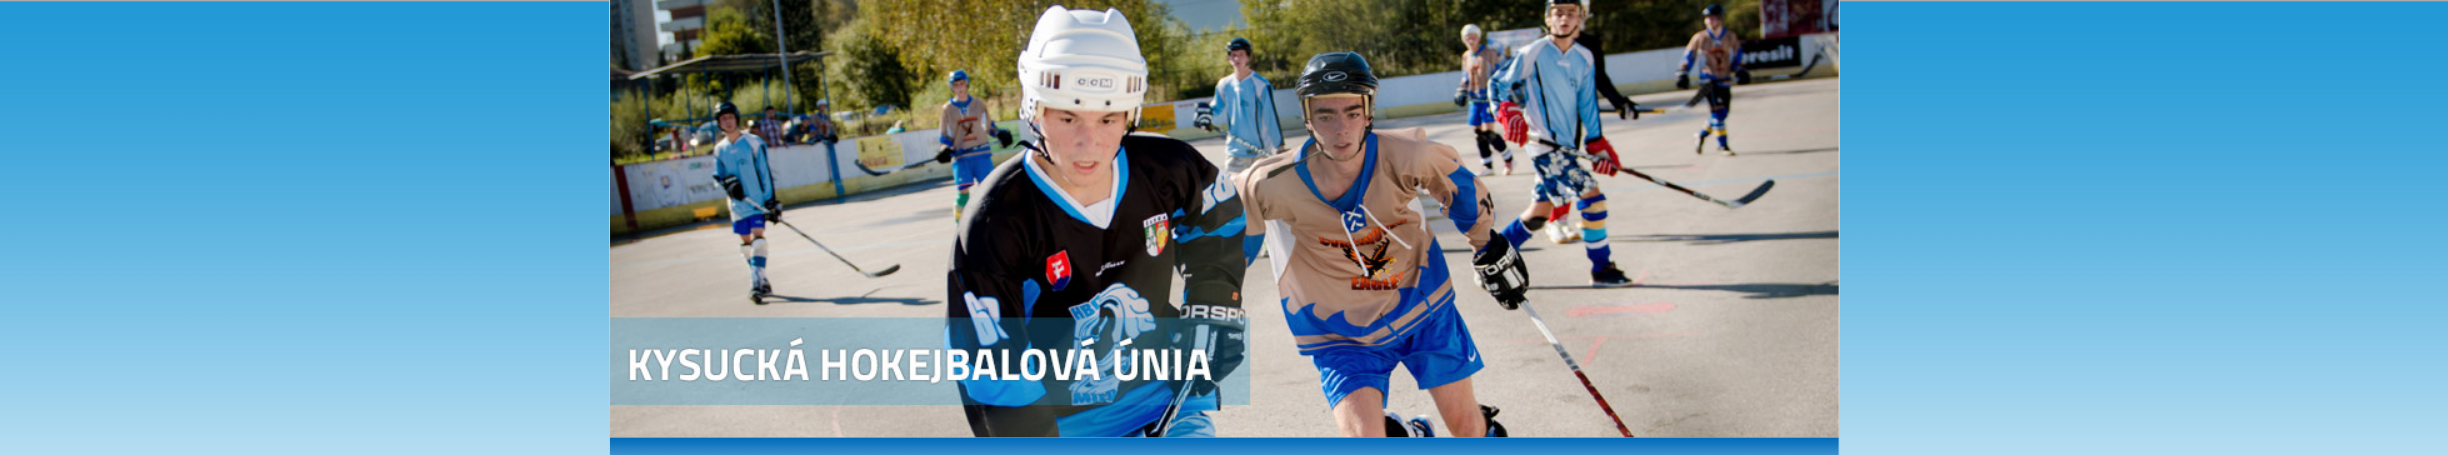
<svg xmlns="http://www.w3.org/2000/svg" width="2448" height="455" viewBox="0 0 2448 455">
  <rect width="100%" height="100%" fill="#ffffff"/>
  <image x="0" y="0" width="2448" height="455" href="img1.png"/>
  <rect x="610" y="0" width="1229" height="455" fill="#ffffff"/>
  <rect x="1839" y="0" width="1" height="455" fill="#cccccc"/>
  <rect x="609" y="0" width="1" height="455" fill="#cccccc"/>
  <image x="610" y="0" width="1229" height="438" href="img2.png"/>
  <image x="610" y="437" width="1229" height="18" href="img3.png"/>
</svg>
